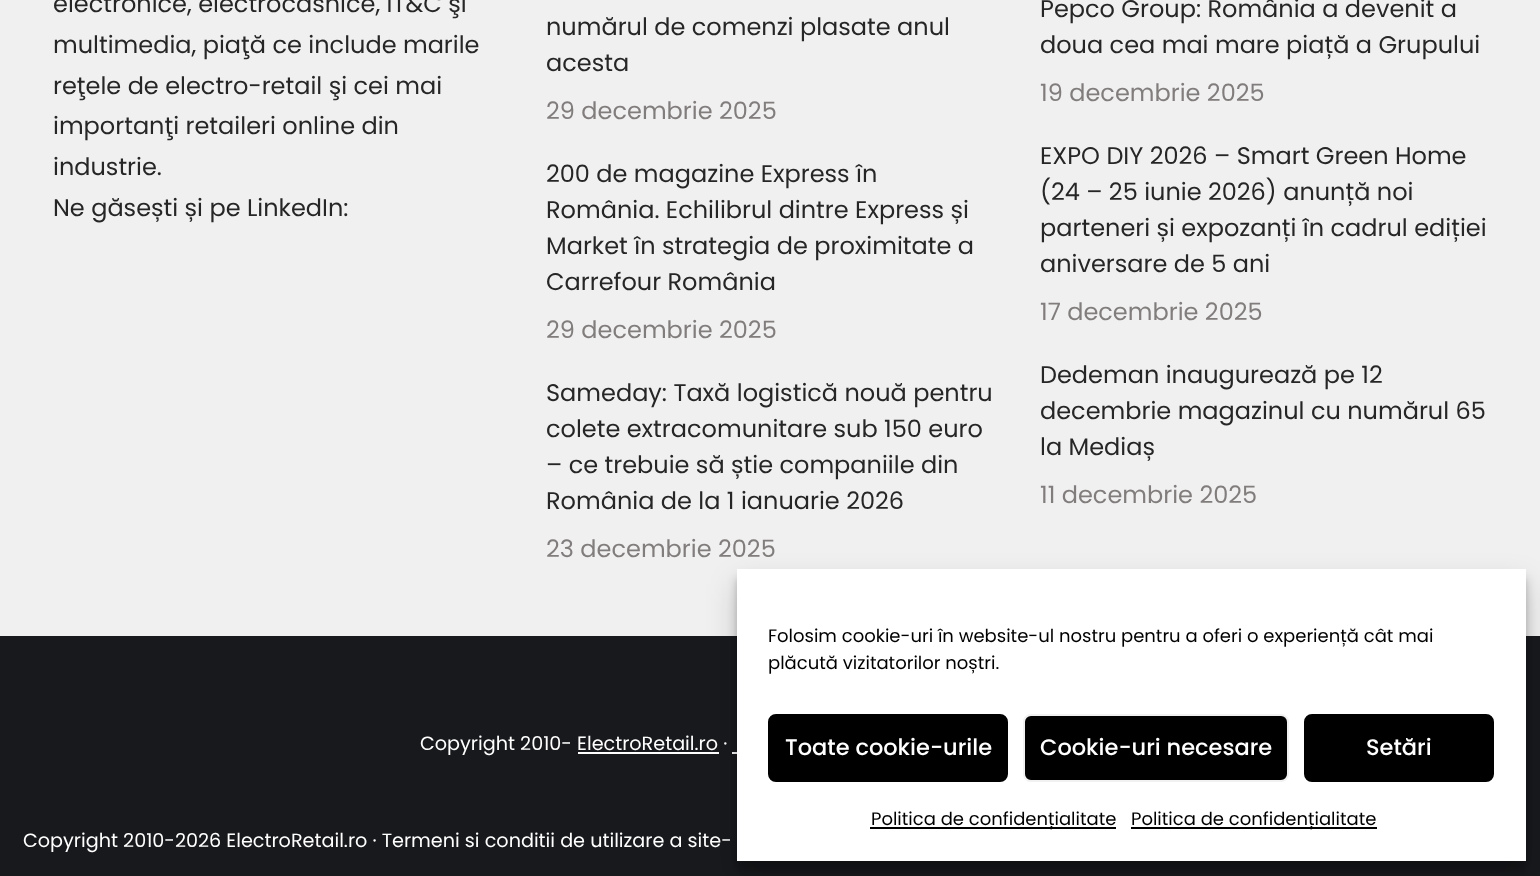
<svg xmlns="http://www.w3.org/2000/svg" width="1540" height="876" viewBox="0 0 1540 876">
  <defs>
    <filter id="blur1" x="-50%" y="-200%" width="200%" height="500%"><feGaussianBlur stdDeviation="4.5"/></filter>
    <filter id="blur2" x="-50%" y="-200%" width="200%" height="500%"><feGaussianBlur stdDeviation="15"/></filter>
  </defs>
  <rect width="100%" height="100%" fill="#18191d"/>
  <rect x="0" y="0" width="1540" height="636" fill="#f0f0f0"/>
  <text x="53" y="12" font-family="Poppins" font-size="24" fill="#272626">electronice, electrocasnice, IT&amp;C şi</text>
  <text x="53" y="53" font-family="Poppins" font-size="24" fill="#272626">multimedia, piaţă ce include marile</text>
  <text x="53" y="94" font-family="Poppins" font-size="24" fill="#272626">reţele de electro-retail şi cei mai</text>
  <text x="53" y="134" font-family="Poppins" font-size="24" fill="#272626">importanţi retaileri online din</text>
  <text x="53" y="175" font-family="Poppins" font-size="24" fill="#272626">industrie.</text>
  <text x="53" y="216" font-family="Poppins" font-size="24" fill="#272626">Ne găsești și pe LinkedIn:</text>
  <text x="546" y="35" font-family="Poppins" font-size="24" fill="#272626">numărul de comenzi plasate anul</text>
  <text x="546" y="71" font-family="Poppins" font-size="24" fill="#272626">acesta</text>
  <text x="546" y="119" font-family="Poppins" font-size="24" fill="#827d7d">29 decembrie 2025</text>
  <text x="546" y="182" font-family="Poppins" font-size="24" fill="#272626">200 de magazine Express în</text>
  <text x="546" y="218" font-family="Poppins" font-size="24" fill="#272626">România. Echilibrul dintre Express și</text>
  <text x="546" y="254" font-family="Poppins" font-size="24" fill="#272626">Market în strategia de proximitate a</text>
  <text x="546" y="290" font-family="Poppins" font-size="24" fill="#272626">Carrefour România</text>
  <text x="546" y="338" font-family="Poppins" font-size="24" fill="#827d7d">29 decembrie 2025</text>
  <text x="546" y="401" font-family="Poppins" font-size="24" fill="#272626">Sameday: Taxă logistică nouă pentru</text>
  <text x="546" y="437" font-family="Poppins" font-size="24" fill="#272626">colete extracomunitare sub 150 euro</text>
  <text x="546" y="473" font-family="Poppins" font-size="24" fill="#272626">– ce trebuie să știe companiile din</text>
  <text x="546" y="509" font-family="Poppins" font-size="24" fill="#272626">România de la 1 ianuarie 2026</text>
  <text x="546" y="557" font-family="Poppins" font-size="24" fill="#827d7d">23 decembrie 2025</text>
  <text x="1040" y="17" font-family="Poppins" font-size="24" fill="#272626">Pepco Group: România a devenit a</text>
  <text x="1040" y="53" font-family="Poppins" font-size="24" fill="#272626">doua cea mai mare piață a Grupului</text>
  <text x="1040" y="101" font-family="Poppins" font-size="24" fill="#827d7d">19 decembrie 2025</text>
  <text x="1040" y="164" font-family="Poppins" font-size="24" fill="#272626">EXPO DIY 2026 – Smart Green Home</text>
  <text x="1040" y="200" font-family="Poppins" font-size="24" fill="#272626">(24 – 25 iunie 2026) anunță noi</text>
  <text x="1040" y="236" font-family="Poppins" font-size="24" fill="#272626">parteneri și expozanți în cadrul ediției</text>
  <text x="1040" y="272" font-family="Poppins" font-size="24" fill="#272626">aniversare de 5 ani</text>
  <text x="1040" y="320" font-family="Poppins" font-size="24" fill="#827d7d">17 decembrie 2025</text>
  <text x="1040" y="383" font-family="Poppins" font-size="24" fill="#272626">Dedeman inaugurează pe 12</text>
  <text x="1040" y="419" font-family="Poppins" font-size="24" fill="#272626">decembrie magazinul cu numărul 65</text>
  <text x="1040" y="455" font-family="Poppins" font-size="24" fill="#272626">la Mediaș</text>
  <text x="1040" y="503" font-family="Poppins" font-size="24" fill="#827d7d">11 decembrie 2025</text>
  <text x="420" y="750" font-family="Poppins" font-size="19.2" fill="#ffffff">Copyright 2010- ElectroRetail.ro ·</text>
  <rect x="578" y="752" width="141" height="2" fill="#ffffff"/>
  <rect x="732" y="752" width="5" height="2" fill="#ffffff"/>
  <text x="23" y="847" font-family="Poppins" font-size="19.2" fill="#ffffff">Copyright 2010-2026 ElectroRetail.ro · Termeni si conditii de utilizare a site-</text>
  <rect x="737" y="578" width="789" height="292" fill="#000000" fill-opacity="0.23" filter="url(#blur1)"/>
  <rect x="737" y="584" width="789" height="292" fill="#000000" fill-opacity="0.19" filter="url(#blur2)"/>
  <rect x="737" y="569" width="789" height="292" fill="#ffffff"/>
  <text x="768" y="642" font-family="Poppins" font-size="18" fill="#000000">Folosim cookie-uri în website-ul nostru pentru a oferi o experiență cât mai</text>
  <text x="768" y="669" font-family="Poppins" font-size="18" fill="#000000">plăcută vizitatorilor noștri.</text>
  <rect x="769" y="715" width="238" height="66" rx="7" fill="#000000" stroke="#000000" stroke-width="2"/>
  <text x="785" y="755" font-family="Poppins" font-size="22.5" font-weight="500" fill="#ffffff">Toate cookie-urile</text>
  <rect x="1024" y="715" width="264" height="66" rx="7" fill="#000000" stroke="#f1f1f1" stroke-width="2"/>
  <text x="1040" y="755" font-family="Poppins" font-size="22.5" font-weight="500" fill="#ffffff">Cookie-uri necesare</text>
  <rect x="1305" y="715" width="188" height="66" rx="7" fill="#000000" stroke="#000000" stroke-width="2"/>
  <text x="1366" y="755" font-family="Poppins" font-size="22.5" font-weight="500" fill="#ffffff">Setări</text>
  <rect x="870" y="827" width="246" height="2" fill="#000000"/>
  <text x="871" y="825" font-family="Poppins" font-size="18" fill="#000000">Politica de confidențialitate</text>
  <rect x="1131" y="827" width="246" height="2" fill="#000000"/>
  <text x="1131" y="825" font-family="Poppins" font-size="18" fill="#000000">Politica de confidențialitate</text>
</svg>
